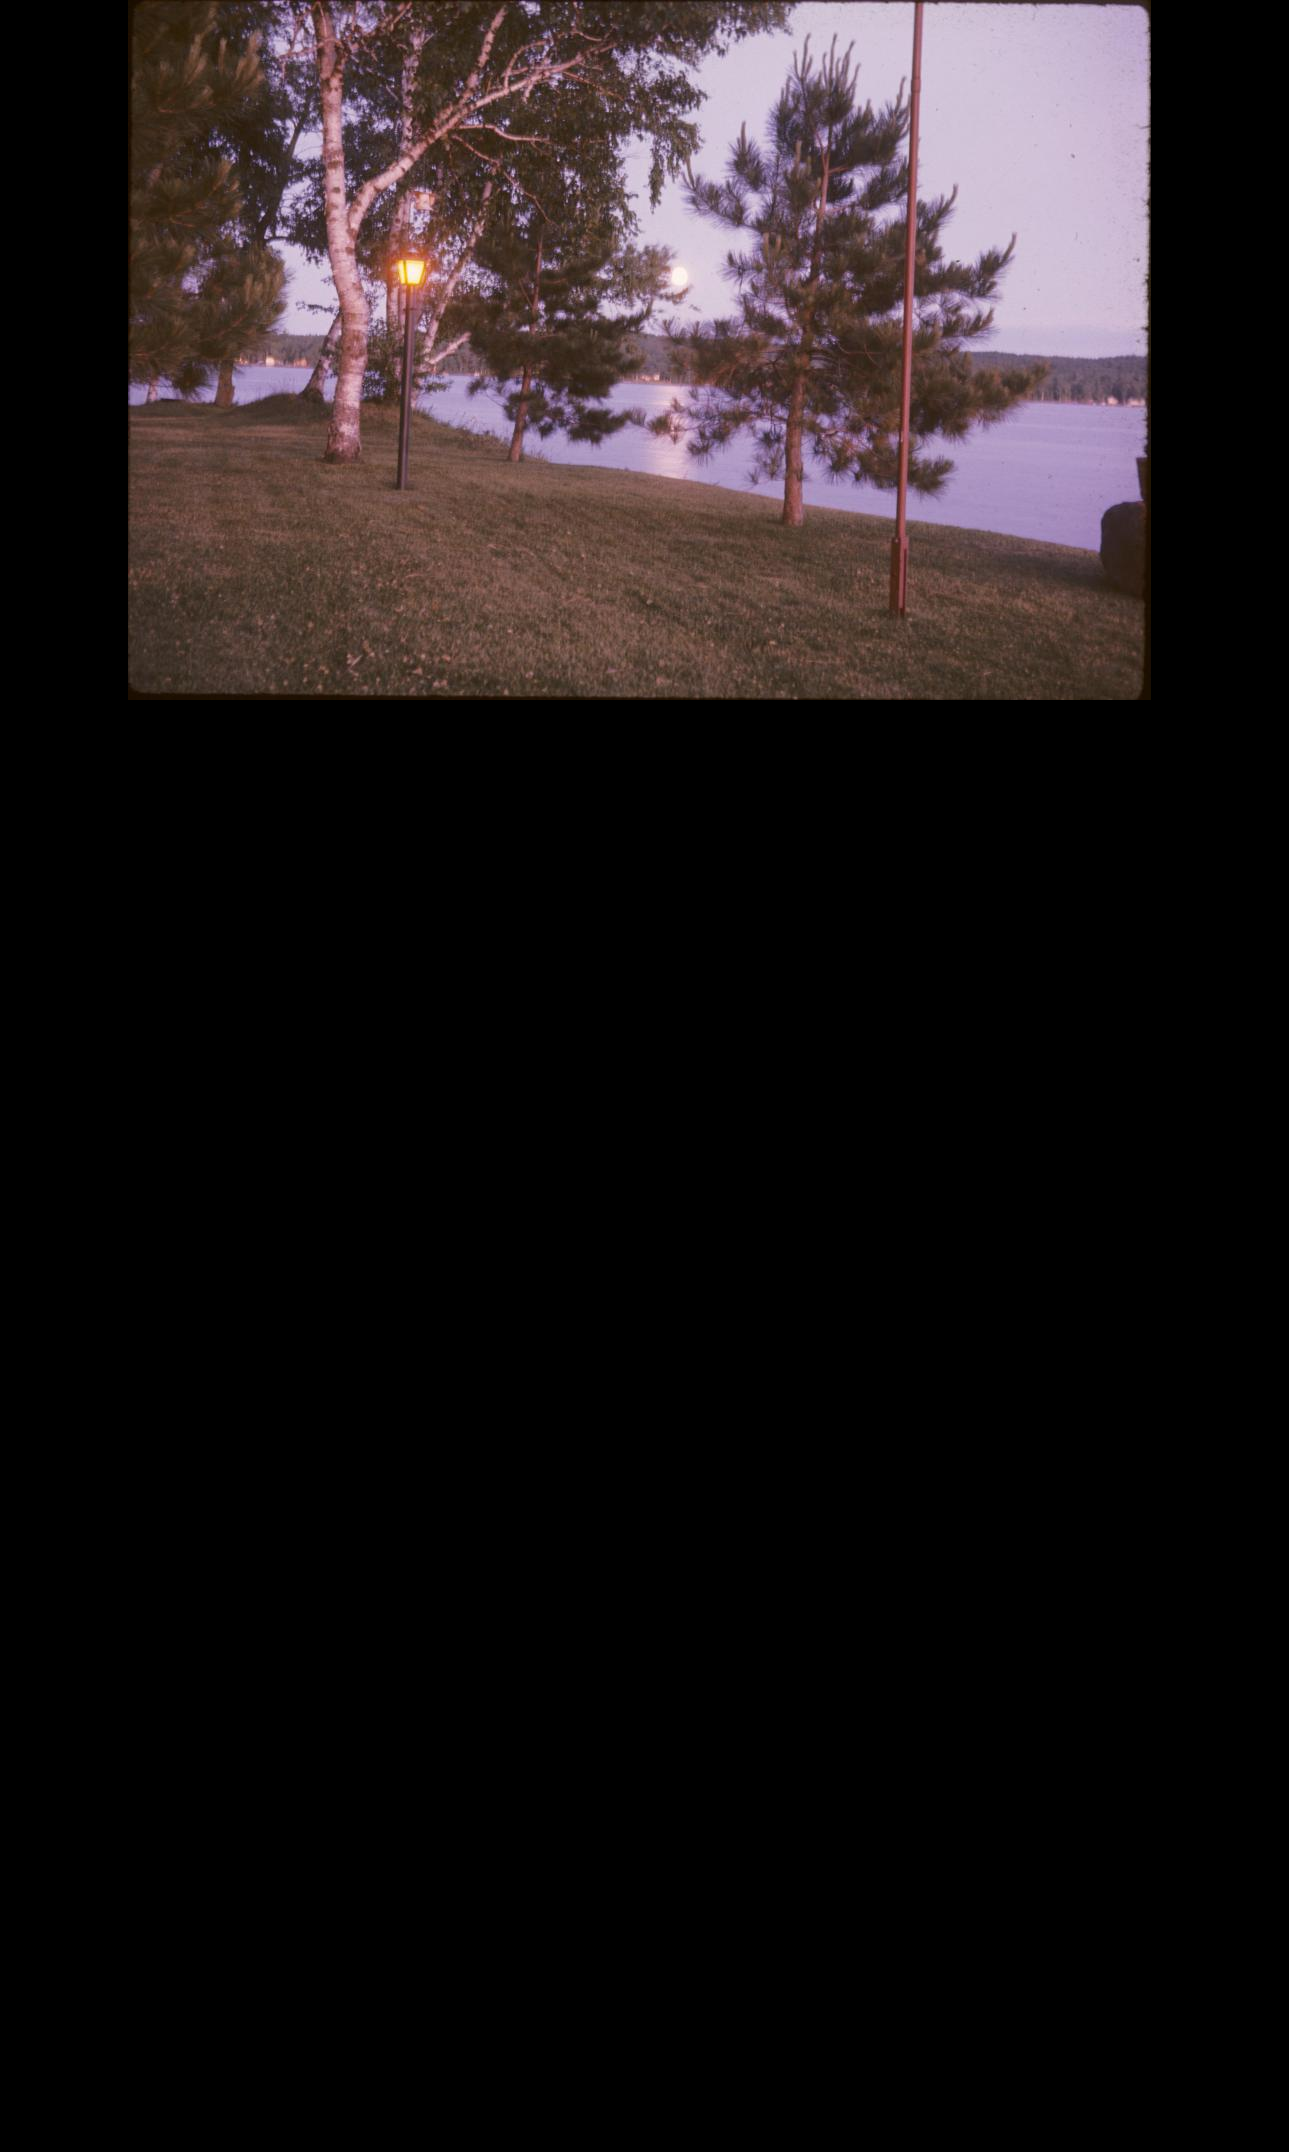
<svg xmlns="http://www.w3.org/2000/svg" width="1289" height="2152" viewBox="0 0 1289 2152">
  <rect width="100%" height="100%" fill="#000000"/>
  <image x="128" y="0" width="1023" height="700" href="img1.png"/>
</svg>
